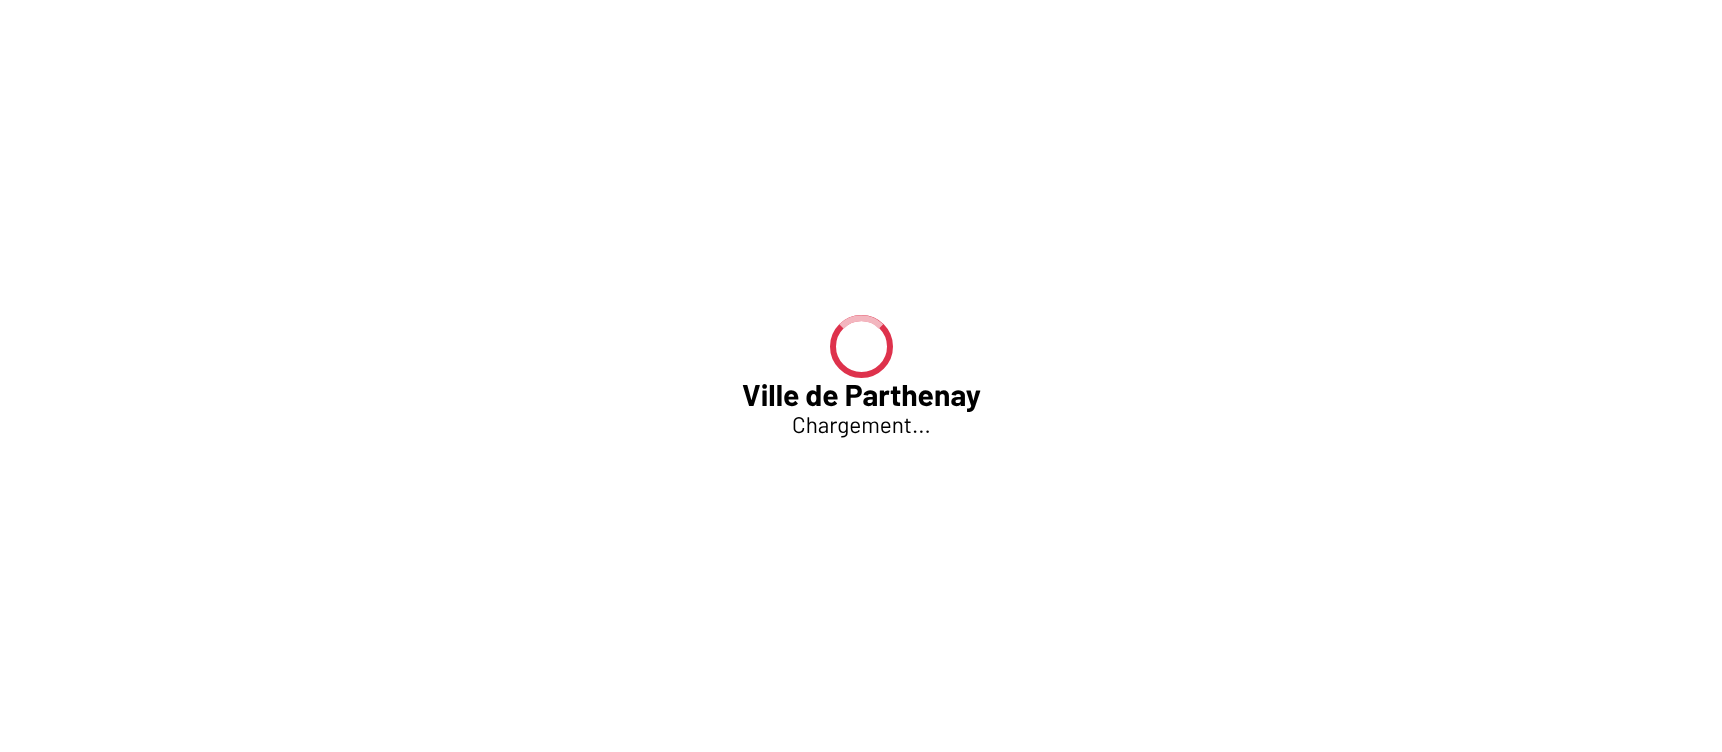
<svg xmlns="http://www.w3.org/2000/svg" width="1722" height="752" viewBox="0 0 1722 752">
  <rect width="100%" height="100%" fill="#ffffff"/>
  <circle cx="861.5" cy="346.5" r="28.5" fill="none" stroke="#de324c" stroke-width="6"/>
  <path d="M841.5 326.5C852 315.5 870.5 315.5 881 326.5" fill="none" stroke="#f3b6bf" stroke-width="6.2"/>
  <text x="742" y="406" font-family="Barlow" font-size="30" font-weight="bold" fill="#000000">Ville de Parthenay</text>
  <text x="792" y="433" font-family="Barlow" font-size="22.5" fill="#000000">Chargement...</text>
</svg>
